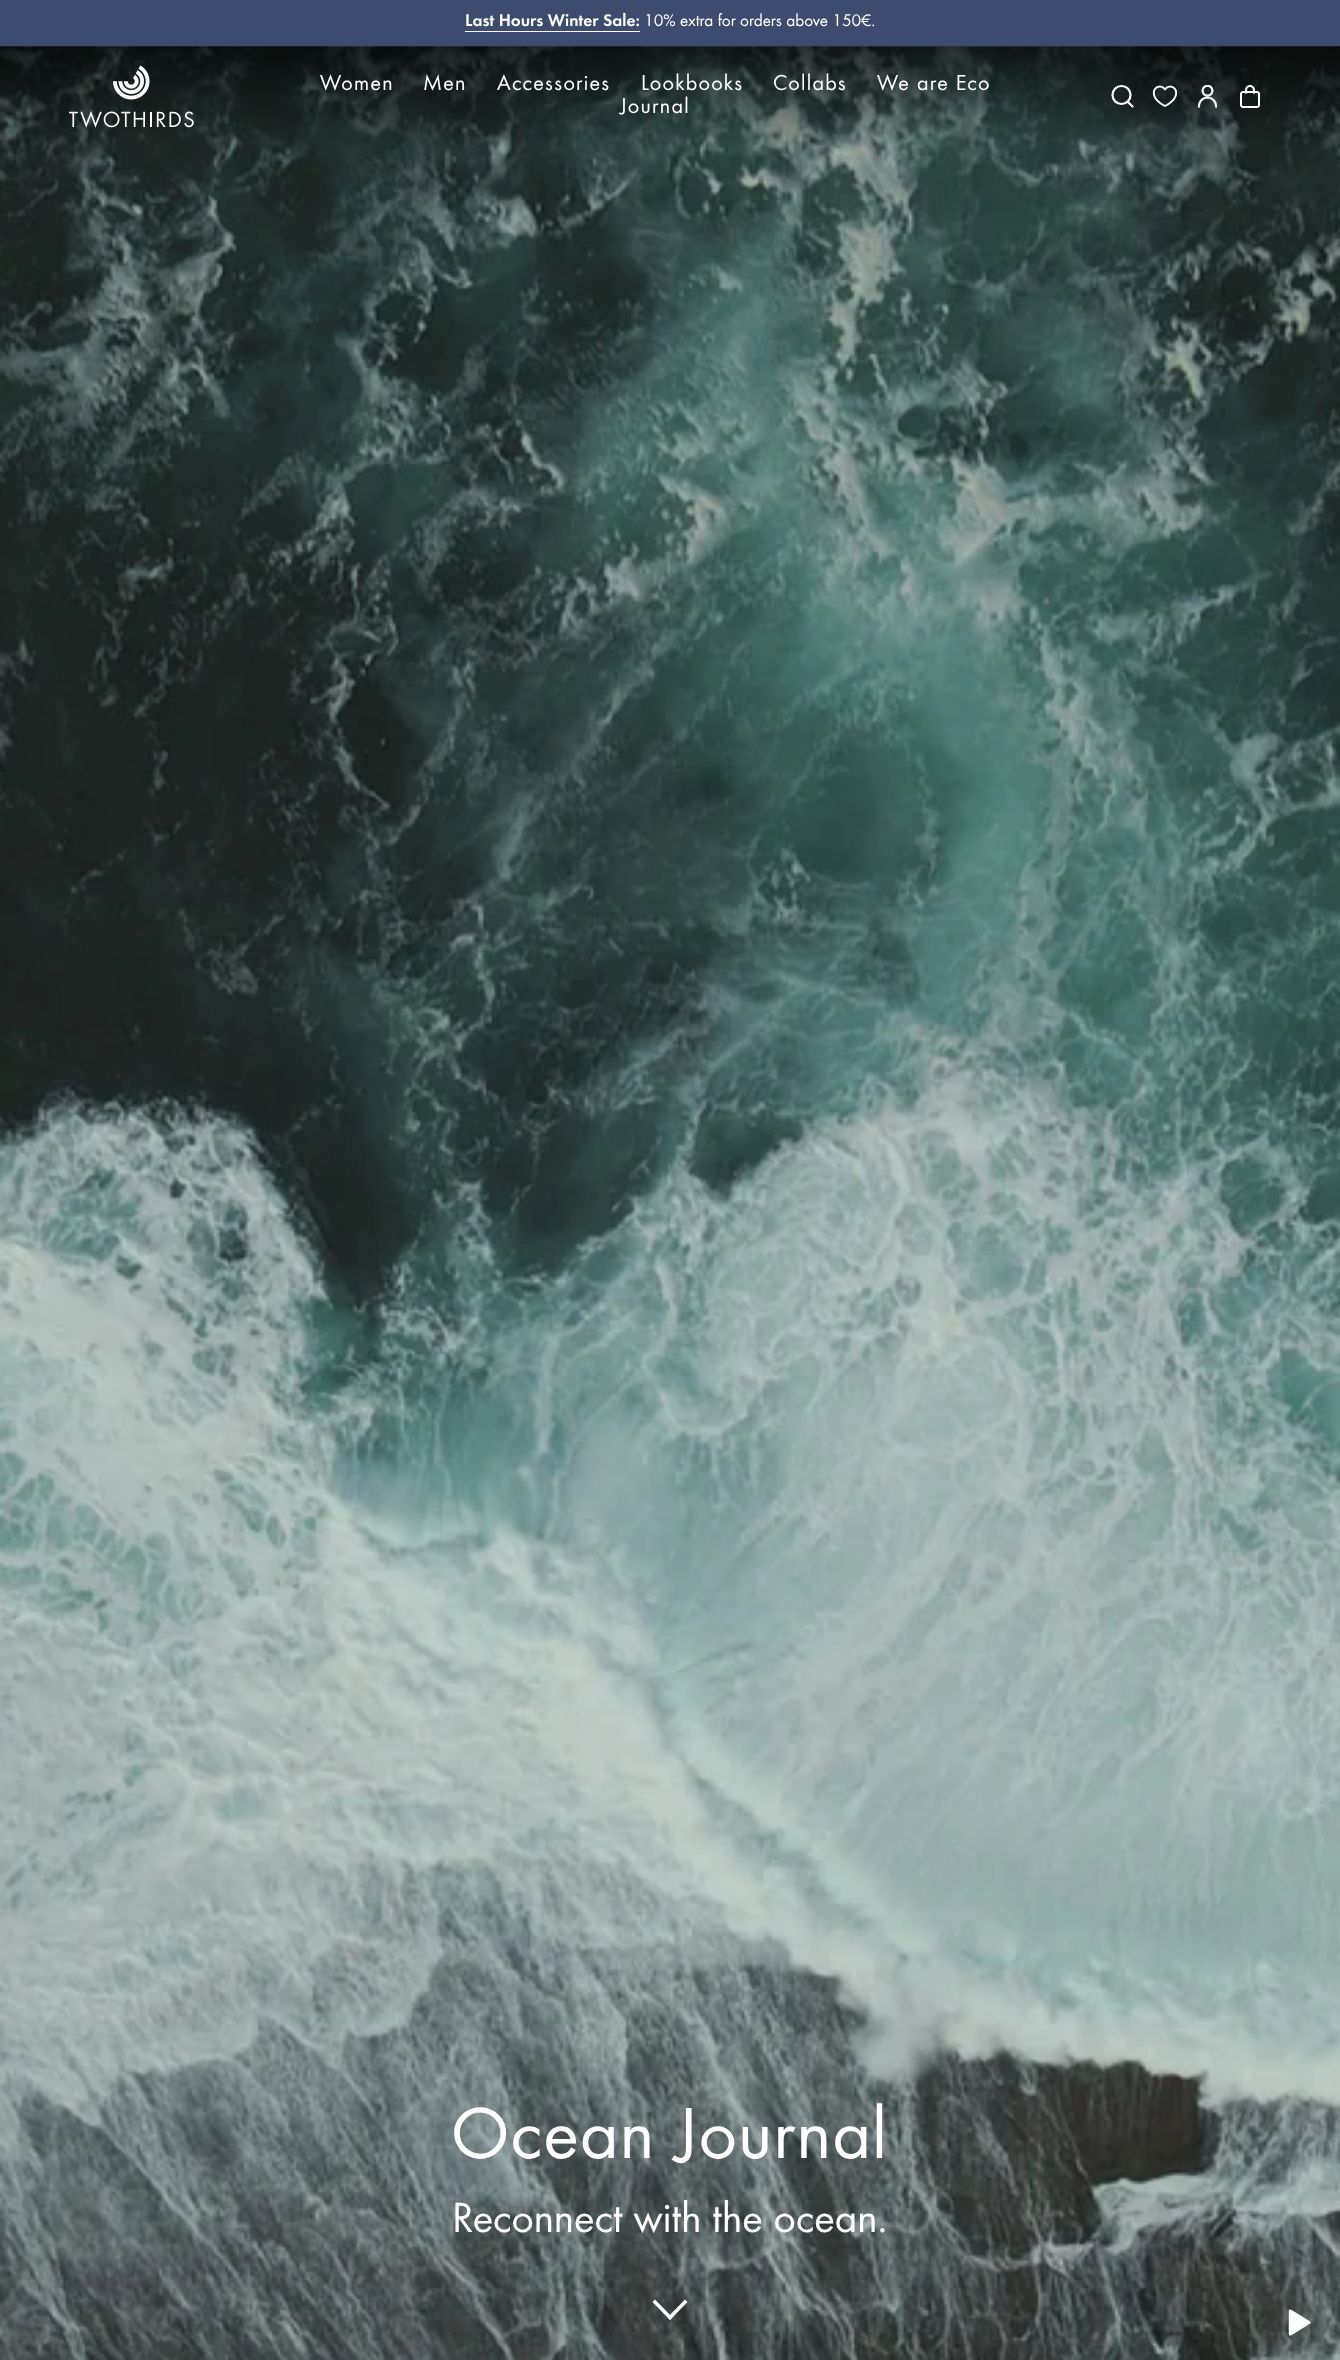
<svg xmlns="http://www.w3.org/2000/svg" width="1340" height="2360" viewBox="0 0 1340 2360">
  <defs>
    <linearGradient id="g1" gradientUnits="userSpaceOnUse" x1="670" y1="46" x2="670" y2="148"><stop offset="0" stop-color="#000000" stop-opacity="0.7"/><stop offset="1" stop-color="#000000" stop-opacity="0"/></linearGradient>
  </defs>
  <rect width="100%" height="100%" fill="#ffffff"/>
  <rect x="0" y="0" width="1340" height="46" fill="#3d4c6e"/>
  <text x="465" y="26" font-family="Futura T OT" font-size="17.5" font-weight="600" fill="#ffffff">Last Hours Winter Sale:</text>
  <rect x="465" y="31" width="175" height="1" fill="#ffffff"/>
  <text x="644" y="26" font-family="Futura" font-size="17.5" fill="#ffffff">10% extra for orders above 150€.</text>
  <image x="0" y="46" width="1340" height="2314" href="img6.png"/>
  <rect x="0" y="46" width="1340" height="99" fill="url(#g1)"/>
  <image x="113" y="65" width="37" height="35" href="img1.png"/>
  <image x="69" y="111" width="125" height="17" href="img2.png"/>
  <text x="320" y="90" font-family="Futura" font-size="22.5" letter-spacing="1.25" fill="#ffffff">Women</text>
  <text x="423" y="90" font-family="Futura" font-size="22.5" letter-spacing="1.25" fill="#ffffff">Men</text>
  <text x="497" y="90" font-family="Futura" font-size="22.5" letter-spacing="1.25" fill="#ffffff">Accessories</text>
  <text x="641" y="90" font-family="Futura" font-size="22.5" letter-spacing="1.25" fill="#ffffff">Lookbooks</text>
  <text x="773" y="90" font-family="Futura" font-size="22.5" letter-spacing="1.25" fill="#ffffff">Collabs</text>
  <text x="877" y="90" font-family="Futura" font-size="22.5" letter-spacing="1.25" fill="#ffffff">We are Eco</text>
  <text x="620" y="113" font-family="Futura" font-size="22.5" letter-spacing="1.25" fill="#ffffff">Journal</text>
  <circle cx="1121.5" cy="95" r="9" fill="none" stroke="#ffffff" stroke-width="2.2"/>
  <path d="M1132.5 106.5L1127.5 101.5" fill="none" stroke="#ffffff" stroke-width="2.2" stroke-linecap="round" stroke-linejoin="round"/>
  <image x="1152" y="85" width="26" height="22" href="img3.png"/>
  <image x="1197" y="85" width="21" height="23" href="img4.png"/>
  <image x="1240" y="85" width="20" height="23" href="img5.png"/>
  <text x="451" y="2158" font-family="Futura" font-size="75" letter-spacing="1.25" fill="#ffffff">Ocean Journal</text>
  <text x="452" y="2232" font-family="Futura" font-size="43.75" fill="#ffffff">Reconnect with the ocean.</text>
  <path d="M685 2299.5L687.5 2302L670 2320L667.5 2317.5Z" fill="#ffffff"/>
  <path d="M655 2299.5L672.5 2317.5L670 2320L652.5 2302Z" fill="#ffffff"/>
  <image x="1288" y="2309" width="23" height="27" href="img7.png"/>
</svg>
